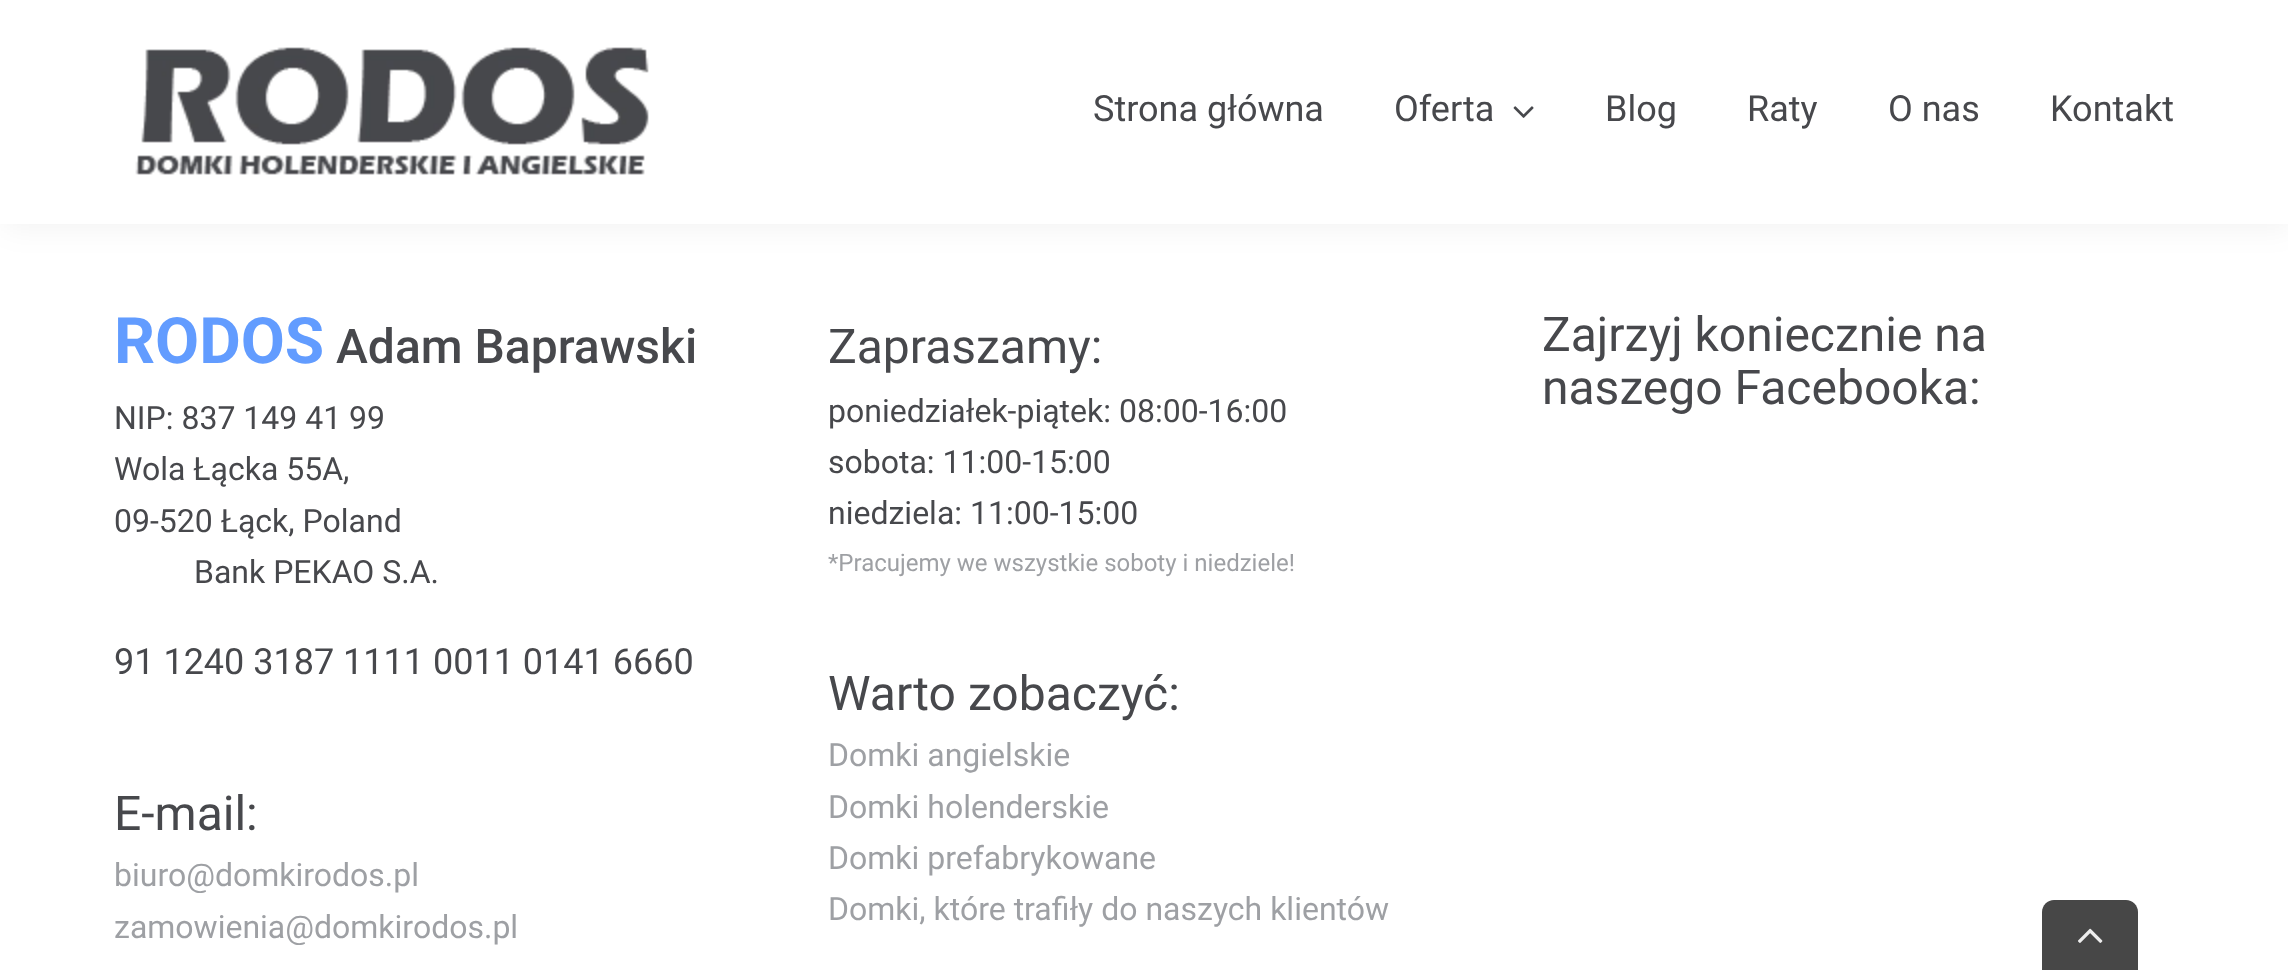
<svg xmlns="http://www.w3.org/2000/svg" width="2288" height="970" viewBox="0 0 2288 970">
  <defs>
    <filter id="blur1" x="-50%" y="-200%" width="200%" height="500%"><feGaussianBlur stdDeviation="15"/></filter>
  </defs>
  <rect width="100%" height="100%" fill="#ffffff"/>
  <rect x="4" y="4" width="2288" height="224" fill="#000000" fill-opacity="0.05" filter="url(#blur1)"/>
  <rect x="0" y="0" width="2288" height="224" fill="#ffffff"/>
  <image x="135" y="47" width="514" height="128" href="img1.png"/>
  <text x="1093" y="121" font-family="Roboto" font-size="36" fill="#47484c">Strona główna</text>
  <text x="1394" y="121" font-family="Roboto" font-size="36" fill="#47484c">Oferta</text>
  <image x="1513" y="106" width="21" height="12" href="img2.png"/>
  <text x="1605" y="121" font-family="Roboto" font-size="36" fill="#47484c">Blog</text>
  <text x="1747" y="121" font-family="Roboto" font-size="36" fill="#47484c">Raty</text>
  <text x="1888" y="121" font-family="Roboto" font-size="36" fill="#47484c">O nas</text>
  <text x="2050" y="121" font-family="Roboto" font-size="36" fill="#47484c">Kontakt</text>
  <text x="114" y="363" font-family="Roboto" font-size="64" font-weight="bold" fill="#629cff">RODOS</text>
  <text x="336" y="363" font-family="Roboto" font-size="48" font-weight="500" fill="#47484c">Adam Baprawski</text>
  <text x="114" y="429" font-family="Roboto" font-size="32" fill="#47484c">NIP: 837 149 41 99</text>
  <text x="114" y="480" font-family="Roboto" font-size="32" fill="#47484c">Wola Łącka 55A,</text>
  <text x="114" y="532" font-family="Roboto" font-size="32" fill="#47484c">09-520 Łąck, Poland</text>
  <text x="194" y="583" font-family="Roboto" font-size="32" fill="#47484c">Bank PEKAO S.A.</text>
  <text x="114" y="674" font-family="Roboto" font-size="36" fill="#47484c">91 1240 3187 1111 0011 0141 6660</text>
  <text x="114" y="830" font-family="Roboto" font-size="48" fill="#47484c">E-mail:</text>
  <text x="114" y="886" font-family="Roboto" font-size="32" fill="#9ea0a4">biuro@domkirodos.pl</text>
  <text x="114" y="938" font-family="Roboto" font-size="32" fill="#9ea0a4">zamowienia@domkirodos.pl</text>
  <text x="828" y="363" font-family="Roboto" font-size="48" fill="#47484c">Zapraszamy:</text>
  <text x="828" y="422" font-family="Roboto" font-size="32" fill="#47484c">poniedziałek-piątek: 08:00-16:00</text>
  <text x="828" y="473" font-family="Roboto" font-size="32" fill="#47484c">sobota: 11:00-15:00</text>
  <text x="828" y="524" font-family="Roboto" font-size="32" fill="#47484c">niedziela: 11:00-15:00</text>
  <text x="828" y="571" font-family="Roboto" font-size="24" fill="#9ea0a4">*Pracujemy we wszystkie soboty i niedziele!</text>
  <text x="828" y="710" font-family="Roboto" font-size="48" fill="#47484c">Warto zobaczyć:</text>
  <text x="828" y="766" font-family="Roboto" font-size="32" fill="#9ea0a4">Domki angielskie</text>
  <text x="828" y="818" font-family="Roboto" font-size="32" fill="#9ea0a4">Domki holenderskie</text>
  <text x="828" y="869" font-family="Roboto" font-size="32" fill="#9ea0a4">Domki prefabrykowane</text>
  <text x="828" y="920" font-family="Roboto" font-size="32" fill="#9ea0a4">Domki, które trafiły do naszych klientów</text>
  <text x="1542" y="351" font-family="Roboto" font-size="48" fill="#47484c">Zajrzyj koniecznie na</text>
  <text x="1542" y="404" font-family="Roboto" font-size="48" fill="#47484c">naszego Facebooka:</text>
  <path d="M2054 900H2126C2132.5 900 2138 905.5 2138 912V970H2042V912C2042 905.5 2047.5 900 2054 900Z" fill="#474747"/>
  <image x="2078" y="928" width="25" height="15" href="img3.png"/>
</svg>
